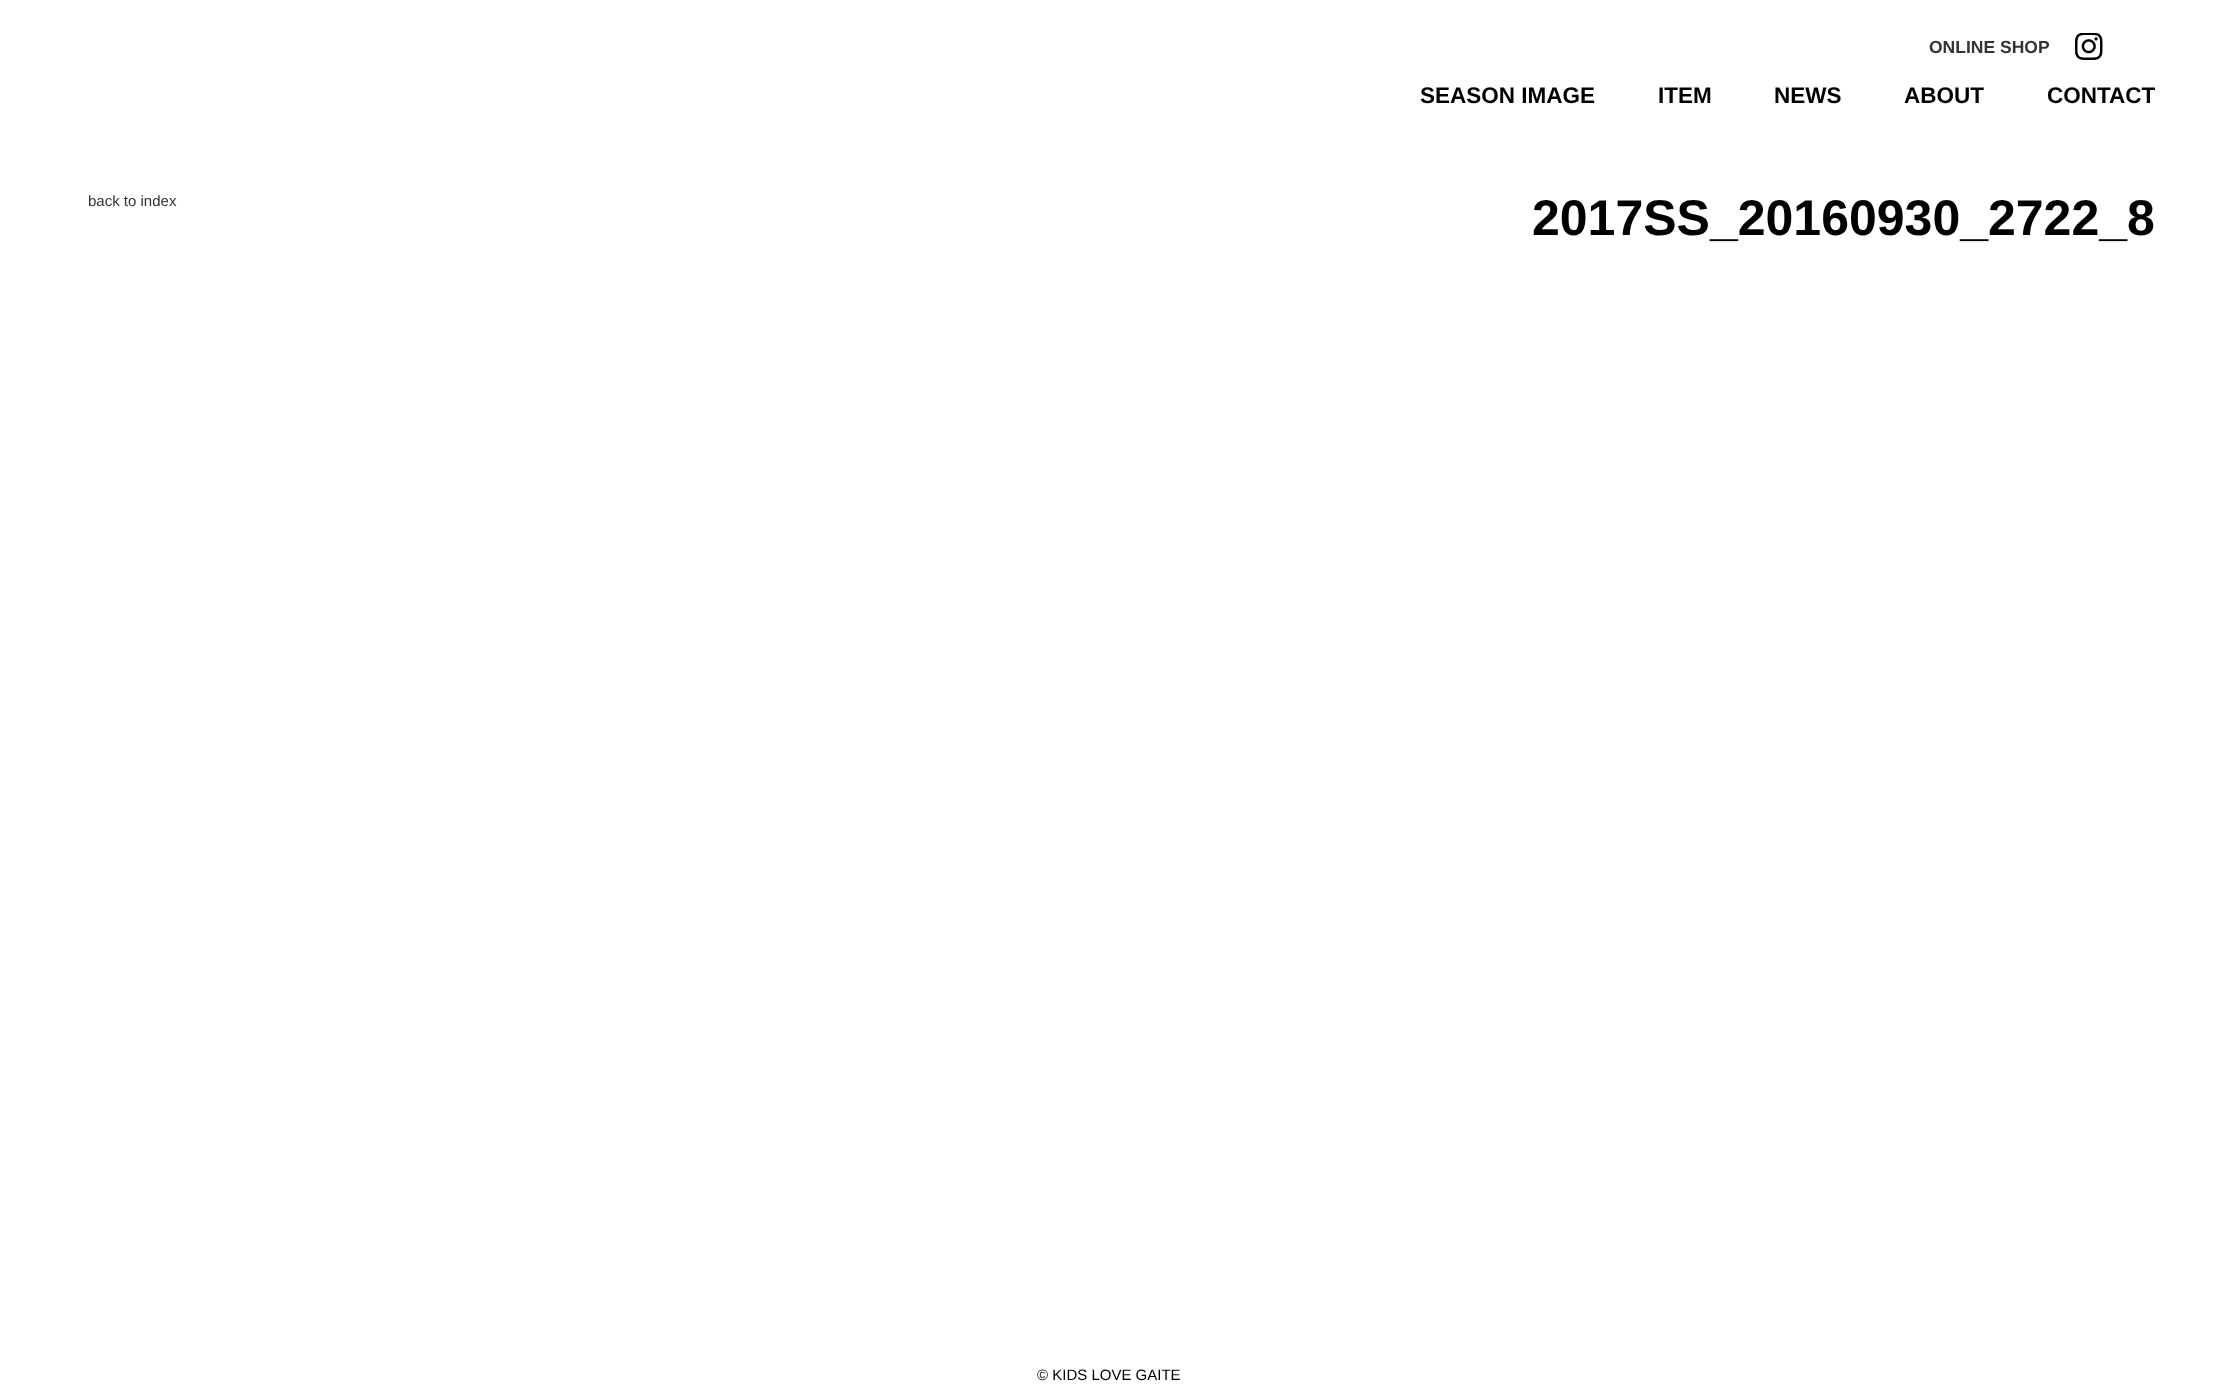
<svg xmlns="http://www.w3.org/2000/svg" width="2217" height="1398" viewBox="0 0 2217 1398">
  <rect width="100%" height="100%" fill="#ffffff"/>
  <text x="1929" y="53" font-family="Liberation Sans" font-size="17.5" font-weight="bold" fill="#333333">ONLINE SHOP</text>
  <image x="2075" y="33" width="28" height="27" href="img1.png"/>
  <text x="1420" y="103" font-family="Liberation Sans" font-size="22.5" font-weight="bold" fill="#000000">SEASON IMAGE</text>
  <text x="1658" y="103" font-family="Liberation Sans" font-size="22.5" font-weight="bold" fill="#000000">ITEM</text>
  <text x="1774" y="103" font-family="Liberation Sans" font-size="22.5" font-weight="bold" fill="#000000">NEWS</text>
  <text x="1904" y="103" font-family="Liberation Sans" font-size="22.5" font-weight="bold" fill="#000000">ABOUT</text>
  <text x="2047" y="103" font-family="Liberation Sans" font-size="22.5" font-weight="bold" fill="#000000">CONTACT</text>
  <text x="88" y="206" font-family="Liberation Sans" font-size="15" fill="#333333">back to index</text>
  <text x="1532" y="235" font-family="Liberation Sans" font-size="50" font-weight="bold" fill="#000000">2017SS_20160930_2722_8</text>
  <text x="1037" y="1380" font-family="Liberation Sans" font-size="15" fill="#000000">© KIDS LOVE GAITE</text>
</svg>
